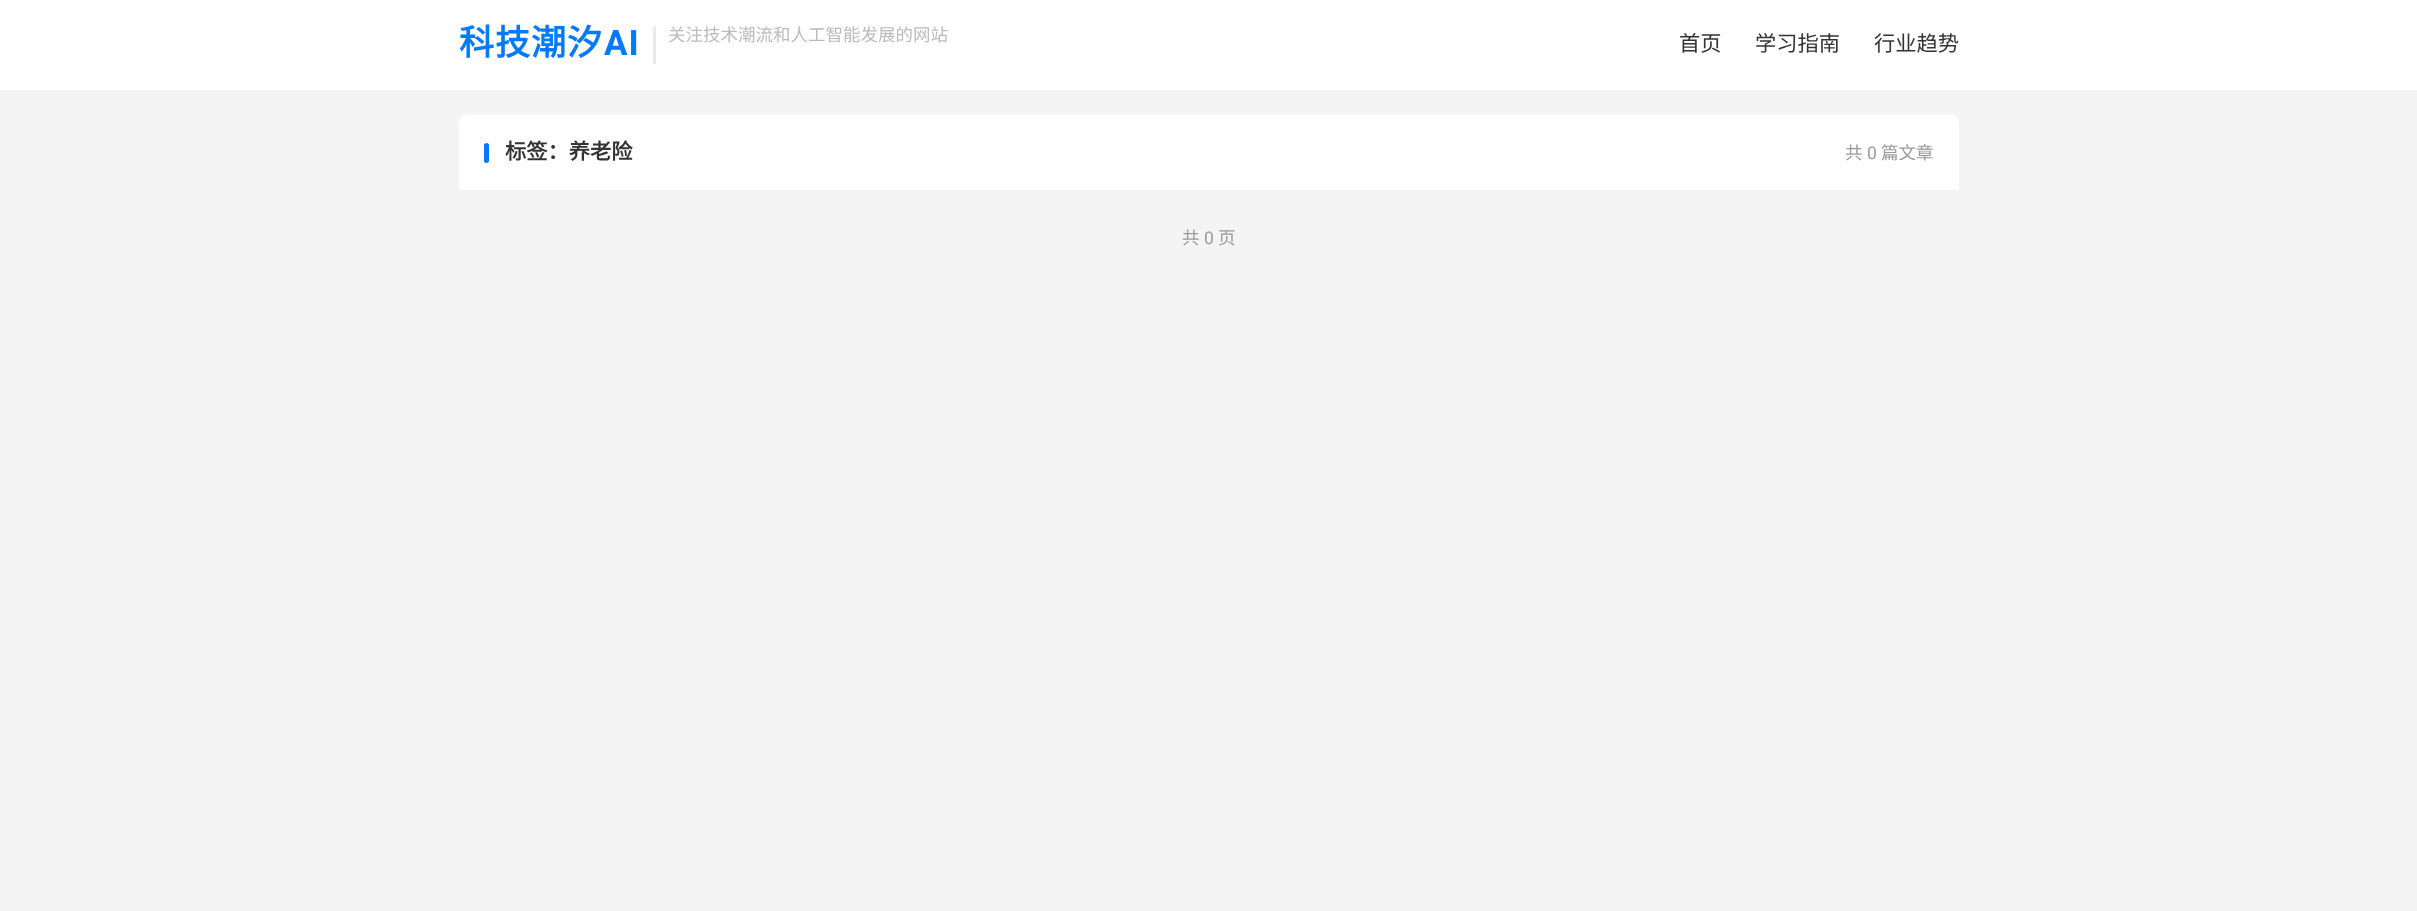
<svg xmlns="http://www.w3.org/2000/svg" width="2417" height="911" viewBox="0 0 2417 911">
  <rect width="100%" height="100%" fill="#f4f4f4"/>
  <rect x="0" y="0" width="2417" height="90" fill="#ffffff"/>
  <text x="459" y="55" font-family="Noto Sans CJK SC" font-size="35" font-weight="bold" letter-spacing="1" fill="#007bff">科技潮汐</text>
  <text x="604" y="55" font-family="Roboto" font-size="35" font-weight="bold" letter-spacing="1" fill="#007bff">AI</text>
  <rect x="653" y="26" width="3" height="38" fill="#eaeaea"/>
  <text x="668" y="41" font-family="Noto Sans CJK SC" font-size="17.5" fill="#bbbbbb">关注技术潮流和人工智能发展的网站</text>
  <text x="1679" y="51" font-family="Noto Sans CJK SC" font-size="21.25" fill="#333333">首页</text>
  <text x="1755" y="51" font-family="Noto Sans CJK SC" font-size="21.25" fill="#333333">学习指南</text>
  <text x="1874" y="51" font-family="Noto Sans CJK SC" font-size="21.25" fill="#333333">行业趋势</text>
  <path d="M467 115H1951C1955.5 115 1959 118.5 1959 123V191H459V123C459 118.5 462.5 115 467 115Z" fill="#ffffff"/>
  <rect x="459" y="190" width="1500" height="1" fill="#f3f3f3"/>
  <rect x="484" y="143" width="5" height="20" rx="2.5" fill="#007bff"/>
  <text x="505" y="159" font-family="Noto Sans CJK SC" font-size="21.25" font-weight="bold" fill="#333333">标签：养老险</text>
  <text x="1845" y="159" font-family="Noto Sans CJK SC" font-size="17.5" fill="#999999">共</text>
  <text x="1867" y="159" font-family="Roboto" font-size="17.5" fill="#999999">0</text>
  <text x="1881" y="159" font-family="Noto Sans CJK SC" font-size="17.5" fill="#999999">篇文章</text>
  <text x="1182" y="244" font-family="Noto Sans CJK SC" font-size="17.5" fill="#999999">共</text>
  <text x="1204" y="244" font-family="Roboto" font-size="17.5" fill="#999999">0</text>
  <text x="1218" y="244" font-family="Noto Sans CJK SC" font-size="17.5" fill="#999999">页</text>
</svg>
